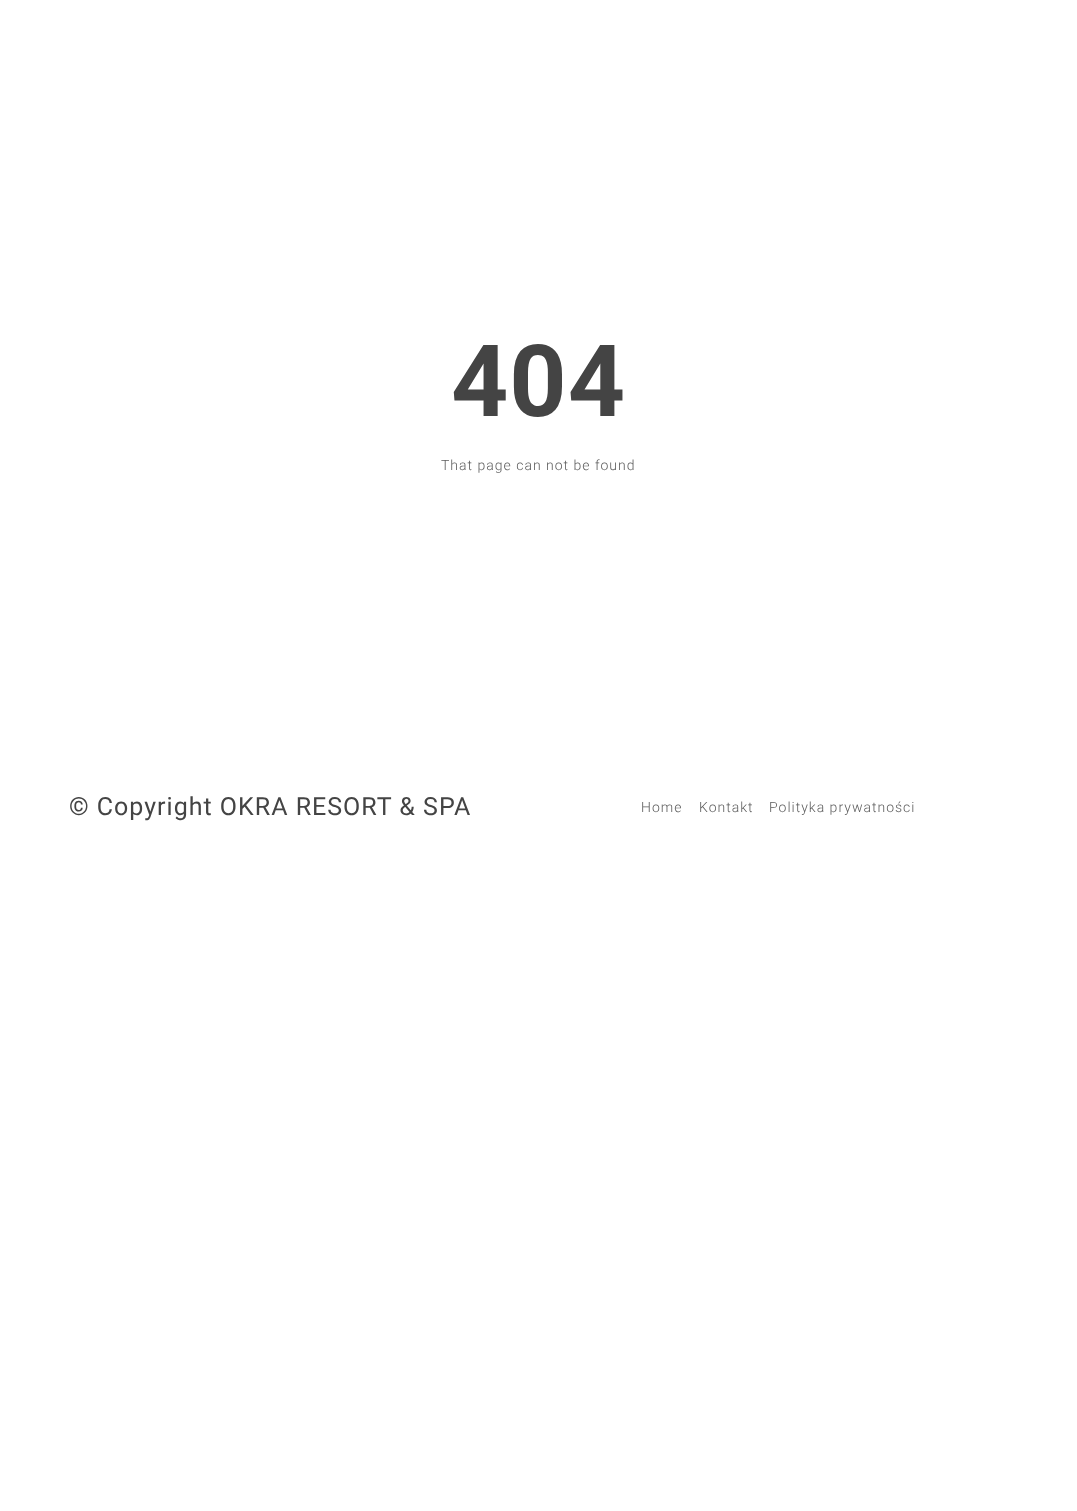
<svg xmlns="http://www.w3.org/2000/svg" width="1077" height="1511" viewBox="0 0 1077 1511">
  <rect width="100%" height="100%" fill="#ffffff"/>
  <text x="451" y="416" font-family="Roboto" font-size="100" font-weight="bold" letter-spacing="1" fill="#444444">404</text>
  <text x="441" y="470" font-family="Roboto" font-size="14" font-weight="300" letter-spacing="1" fill="#5c5c5c">That page can not be found</text>
  <text x="69" y="815" font-family="Roboto" font-size="25" letter-spacing="1" fill="#444444">© Copyright OKRA RESORT &amp; SPA</text>
  <text x="641" y="812" font-family="Roboto" font-size="14" font-weight="300" letter-spacing="1" fill="#5c5c5c">Home</text>
  <text x="699" y="812" font-family="Roboto" font-size="14" font-weight="300" letter-spacing="1" fill="#5c5c5c">Kontakt</text>
  <text x="769" y="812" font-family="Roboto" font-size="14" font-weight="300" letter-spacing="1" fill="#5c5c5c">Polityka prywatności</text>
</svg>
